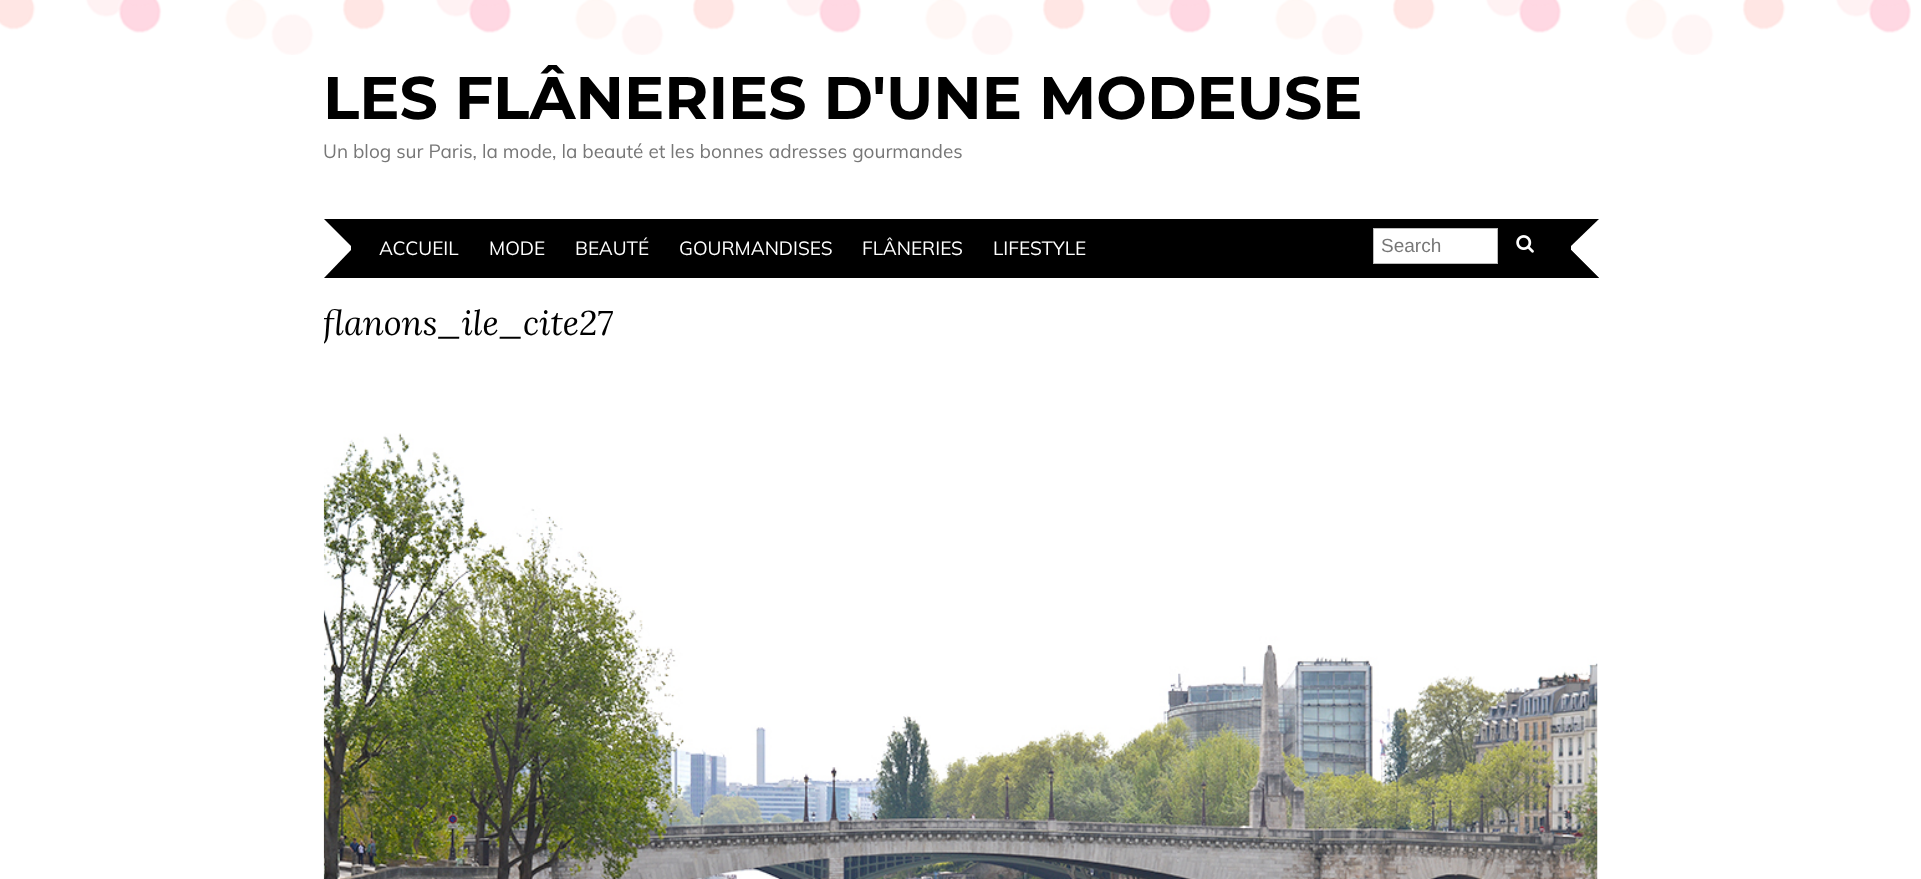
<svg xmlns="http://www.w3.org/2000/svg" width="1921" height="879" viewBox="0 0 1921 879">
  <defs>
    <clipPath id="clip1"><rect x="324" y="290" width="1275" height="60"/></clipPath>
  </defs>
  <rect width="100%" height="100%" fill="#ffffff"/>
  <image x="0" y="0" width="1911" height="55" href="img1.png"/>
  <text x="323" y="119" font-family="Montserrat" font-size="60" font-weight="bold" fill="#000000">LES FLÂNERIES D'UNE MODEUSE</text>
  <text x="323" y="158" font-family="Muli" font-size="19" fill="#777777">Un blog sur Paris, la mode, la beauté et les bonnes adresses gourmandes</text>
  <rect x="324" y="219" width="1275" height="59" fill="#000000"/>
  <path d="M324 278V219L351 246V250Z" fill="#ffffff"/>
  <text x="379" y="255" font-family="Muli" font-size="19" fill="#ffffff">ACCUEIL</text>
  <text x="489" y="255" font-family="Muli" font-size="19" fill="#ffffff">MODE</text>
  <text x="575" y="255" font-family="Muli" font-size="19" fill="#ffffff">BEAUTÉ</text>
  <text x="679" y="255" font-family="Muli" font-size="19" fill="#ffffff">GOURMANDISES</text>
  <text x="862" y="255" font-family="Muli" font-size="19" fill="#ffffff">FLÂNERIES</text>
  <text x="993" y="255" font-family="Muli" font-size="19" fill="#ffffff">LIFESTYLE</text>
  <rect x="1373.5" y="228.5" width="124" height="35" fill="#ffffff" stroke="#bbbbbb"/>
  <text x="1381" y="252" font-family="Liberation Sans" font-size="19" fill="#777777">Search</text>
  <image x="1516" y="235" width="18" height="18" href="img2.png"/>
  <path d="M1599 219V278L1571 250V246Z" fill="#ffffff"/>
  <path d="M1599 278H1552L1571 250Z" fill="#000000"/>
  <g clip-path="url(#clip1)">
    <text x="323" y="335" font-family="Lora" font-size="34.25" font-style="italic" fill="#000000">flanons_ile_cite27</text>
  </g>
  <image x="323" y="433" width="1275" height="446" href="img3.png"/>
</svg>
